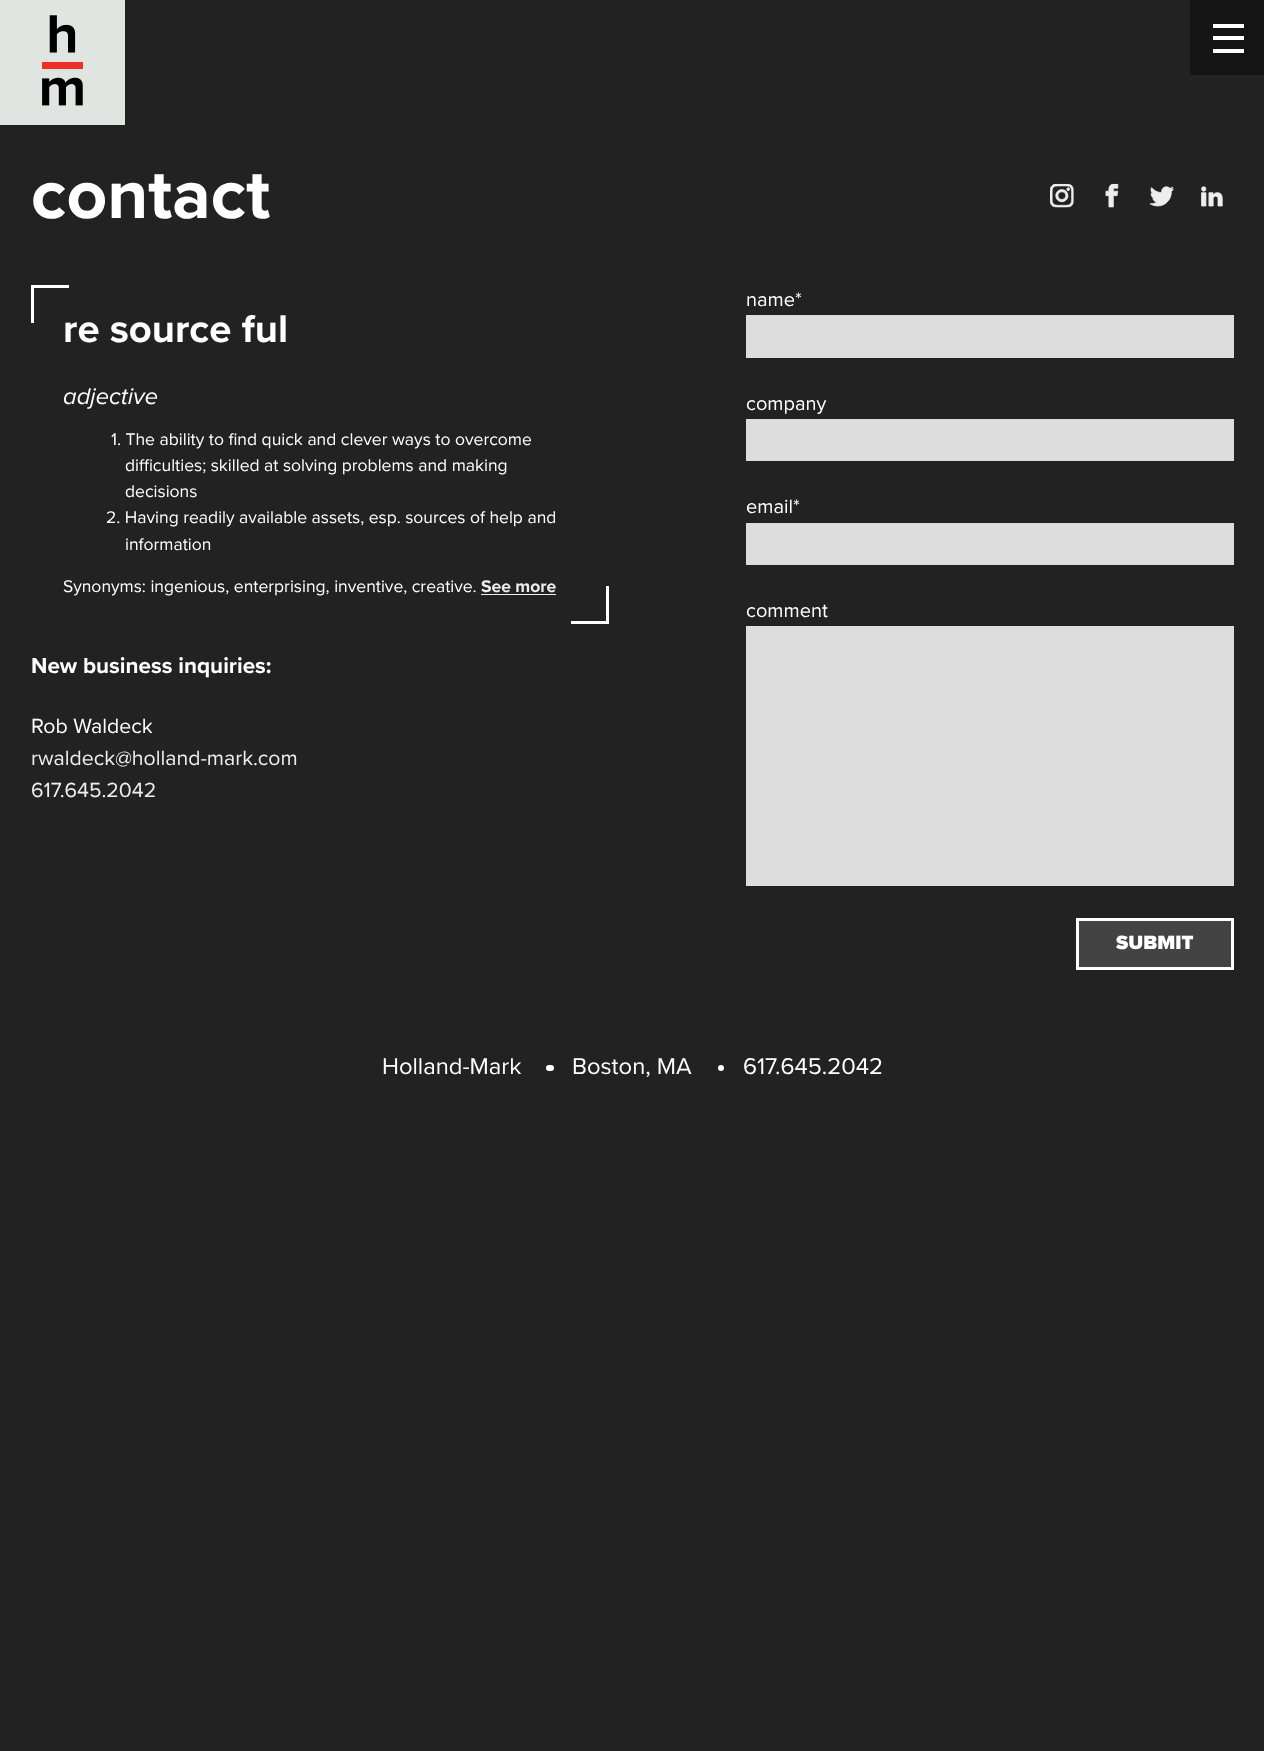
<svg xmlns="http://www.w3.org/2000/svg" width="1264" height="1751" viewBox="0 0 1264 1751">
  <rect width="100%" height="100%" fill="#222222"/>
  <rect x="0" y="0" width="125" height="125" fill="#e1e5e2"/>
  <image x="42" y="15" width="41" height="91" href="img1.png"/>
  <rect x="1190" y="0" width="74" height="75" fill="#141414"/>
  <rect x="1213" y="36" width="31" height="4" fill="#ffffff"/>
  <rect x="1213" y="24" width="31" height="4" fill="#ffffff"/>
  <rect x="1213" y="49" width="31" height="4" fill="#ffffff"/>
  <text x="31" y="218" font-family="Proxima Nova" font-size="71" font-weight="bold" fill="#ffffff">contact</text>
  <image x="1050" y="183" width="24" height="25" href="img2.png"/>
  <image x="1105" y="183" width="14" height="25" href="img3.png"/>
  <image x="1150" y="186" width="24" height="21" href="img4.png"/>
  <image x="1201" y="186" width="22" height="21" href="img5.png"/>
  <rect x="31" y="285" width="38" height="3" fill="#ffffff"/>
  <rect x="31" y="285" width="3" height="38" fill="#ffffff"/>
  <text x="63" y="342" font-family="Proxima Nova" font-size="40" font-weight="bold" fill="#ffffff">re source ful</text>
  <text x="63" y="404" font-family="Proxima Nova" font-size="23.75" font-style="italic" fill="#ffffff">adjective</text>
  <text x="111" y="445" font-family="Proxima Nova" font-size="17.5" fill="#ffffff">1. The ability to find quick and clever ways to overcome</text>
  <text x="125" y="471" font-family="Proxima Nova" font-size="17.5" fill="#ffffff">difficulties; skilled at solving problems and making</text>
  <text x="125" y="497" font-family="Proxima Nova" font-size="17.5" fill="#ffffff">decisions</text>
  <text x="106" y="523" font-family="Proxima Nova" font-size="17.5" fill="#ffffff">2. Having readily available assets, esp. sources of help and</text>
  <text x="125" y="550" font-family="Proxima Nova" font-size="17.5" fill="#ffffff">information</text>
  <text x="63" y="592" font-family="Proxima Nova" font-size="17.5" fill="#ffffff">Synonyms: ingenious, enterprising, inventive, creative.</text>
  <text x="481" y="592" font-family="Proxima Nova" font-size="17.5" font-weight="bold" fill="#eeeeee">See more</text>
  <rect x="481" y="594" width="75" height="1" fill="#eeeeee"/>
  <rect x="606" y="586" width="3" height="38" fill="#ffffff"/>
  <rect x="571" y="621" width="38" height="3" fill="#ffffff"/>
  <text x="31" y="673" font-family="Proxima Nova" font-size="22.5" font-weight="bold" fill="#ffffff">New business inquiries:</text>
  <text x="31" y="733" font-family="Proxima Nova" font-size="21.25" fill="#ffffff">Rob Waldeck</text>
  <text x="31" y="765" font-family="Proxima Nova" font-size="21.25" fill="#eeeeee">rwaldeck@holland-mark.com</text>
  <text x="31" y="797" font-family="Proxima Nova" font-size="21.25" fill="#eeeeee">617.645.2042</text>
  <text x="746" y="306" font-family="Proxima Nova" font-size="20" fill="#ffffff">name</text>
  <text x="795" y="306" font-family="Proxima Nova" font-size="20" fill="#ffffff">*</text>
  <rect x="746" y="315" width="488" height="43" fill="#dddddd"/>
  <text x="746" y="410" font-family="Proxima Nova" font-size="20" fill="#ffffff">company</text>
  <rect x="746" y="419" width="488" height="42" fill="#dddddd"/>
  <text x="746" y="513" font-family="Proxima Nova" font-size="20" fill="#ffffff">email*</text>
  <rect x="746" y="523" width="488" height="42" fill="#dddddd"/>
  <text x="746" y="617" font-family="Proxima Nova" font-size="20" fill="#ffffff">comment</text>
  <rect x="746" y="626" width="488" height="260" fill="#dddddd"/>
  <rect x="1077.5" y="919.5" width="155" height="49" fill="#434343" stroke="#ffffff" stroke-width="3"/>
  <text x="1116" y="949" font-family="Proxima Nova" font-size="20" font-weight="900" fill="#ffffff">SUBMIT</text>
  <text x="382" y="1074" font-family="Proxima Nova" font-size="23.75" fill="#ffffff">Holland-Mark</text>
  <rect x="546" y="1065" width="8" height="6" rx="3" fill="#ffffff"/>
  <text x="572" y="1074" font-family="Proxima Nova" font-size="23.75" fill="#ffffff">Boston, MA</text>
  <circle cx="721" cy="1068" r="3" fill="#ffffff"/>
  <text x="743" y="1074" font-family="Proxima Nova" font-size="23.75" fill="#ffffff">617.645.2042</text>
</svg>
